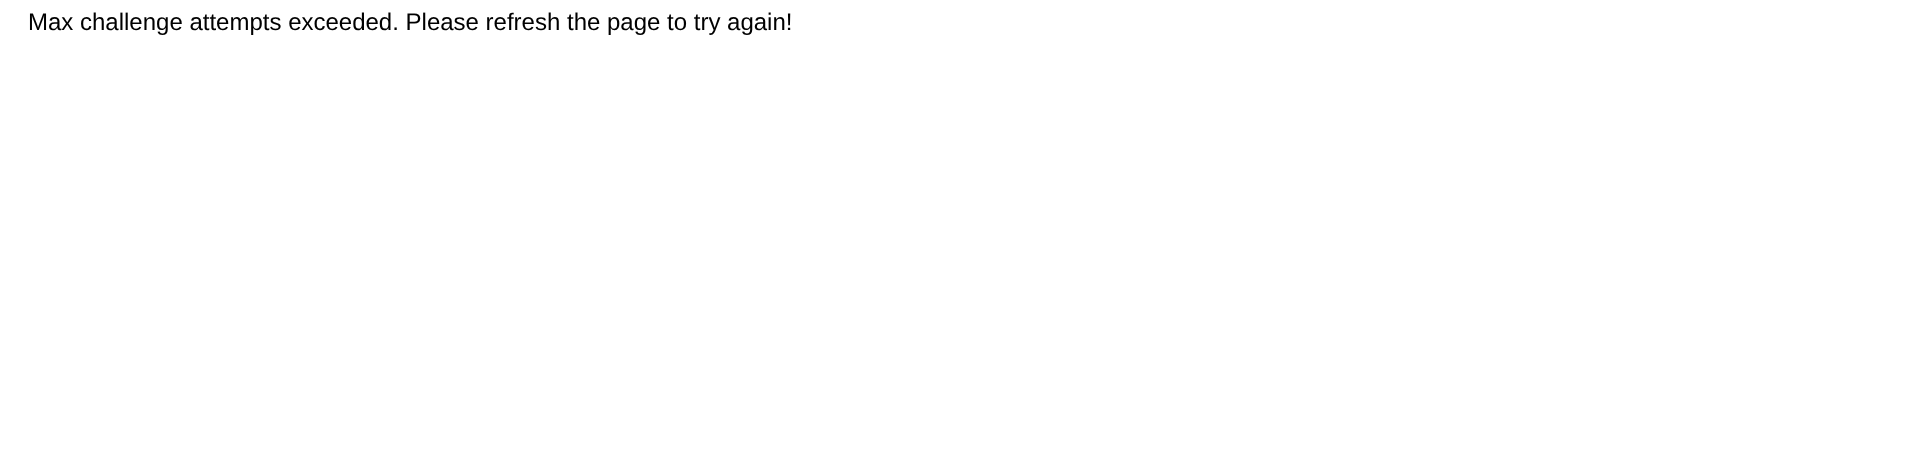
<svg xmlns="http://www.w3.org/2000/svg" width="1920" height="466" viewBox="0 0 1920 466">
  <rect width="100%" height="100%" fill="#ffffff"/>
  <text x="28" y="30" font-family="Liberation Sans" font-size="24" fill="#000000">Max challenge attempts exceeded. Please refresh the page to try again!</text>
</svg>
